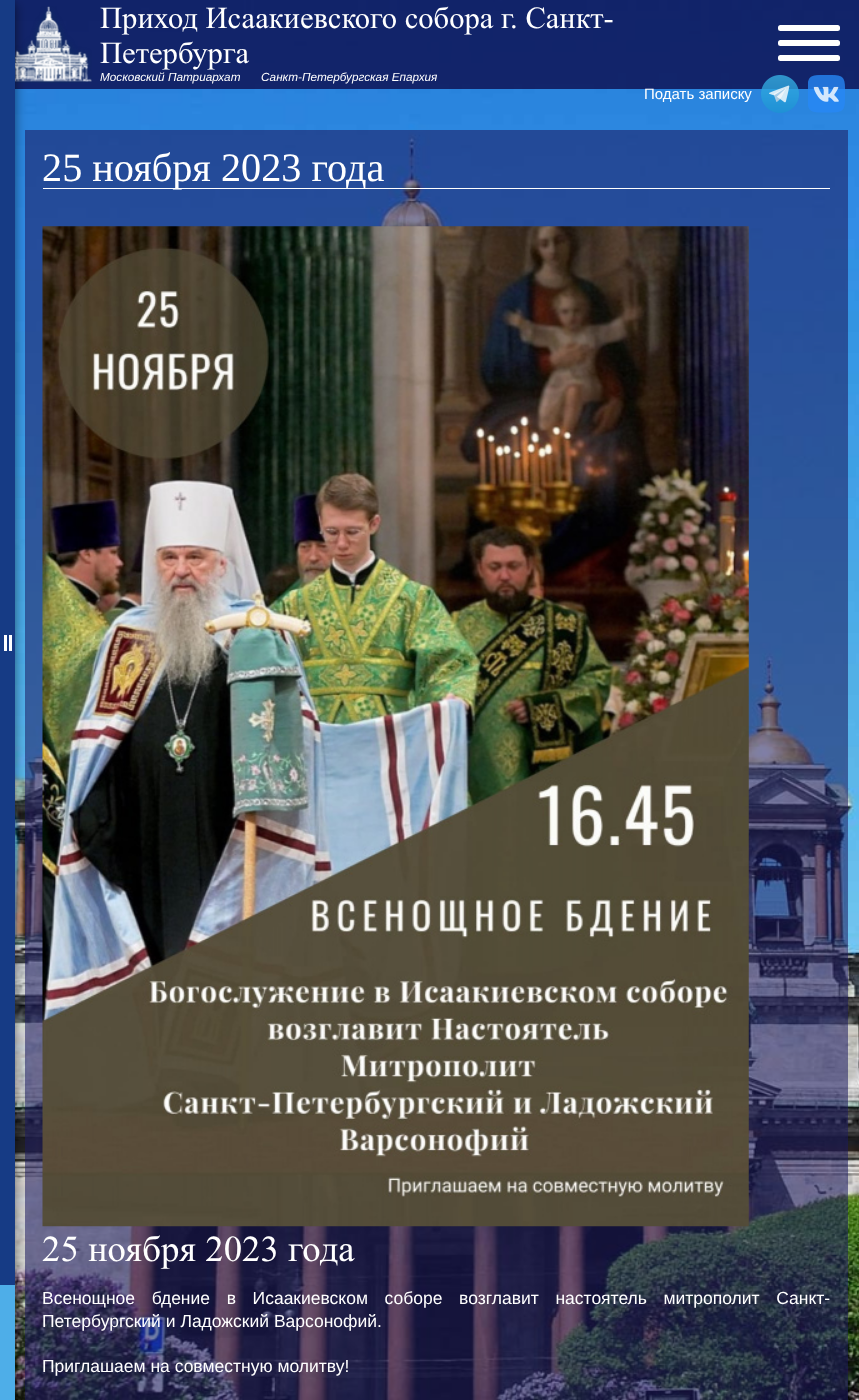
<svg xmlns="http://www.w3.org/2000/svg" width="859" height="1400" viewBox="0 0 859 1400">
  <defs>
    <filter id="blur1" x="-50%" y="-200%" width="200%" height="500%"><feGaussianBlur stdDeviation="5"/></filter>
    <filter id="blur2" x="-50%" y="-200%" width="200%" height="500%"><feGaussianBlur stdDeviation="2.5"/></filter>
  </defs>
  <rect width="100%" height="100%" fill="#ffffff"/>
  <image x="15" y="0" width="844" height="1400" href="img1.png"/>
  <rect x="15" y="0" width="844" height="89" fill="#0d0c4e" fill-opacity="0.8"/>
  <image x="15" y="6" width="77" height="77" href="img2.png"/>
  <rect x="25" y="130" width="823" height="1270" fill="#1c1b61" fill-opacity="0.56"/>
  <rect x="-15" y="5" width="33" height="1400" fill="#000000" fill-opacity="0.28" filter="url(#blur1)"/>
  <rect x="-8" y="0" width="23" height="1400" fill="#000000" fill-opacity="0.14" filter="url(#blur2)"/>
  <rect x="0" y="1285" width="15" height="115" fill="#4eaee8"/>
  <rect x="0" y="0" width="15" height="1285" fill="#163b85"/>
  <rect x="9" y="635" width="3" height="16" fill="#ffffff"/>
  <rect x="4" y="635" width="3" height="16" fill="#ffffff"/>
  <text x="100" y="28" font-family="Times New Roman" font-size="30.6" fill="#ffffff">Приход Исаакиевского собора г. Санкт-</text>
  <text x="100" y="63" font-family="Times New Roman" font-size="30.6" fill="#ffffff">Петербурга</text>
  <text x="100" y="81" font-family="Liberation Sans" font-size="11.75" font-style="italic" fill="#ffffff">Московский Патриархат</text>
  <text x="261" y="81" font-family="Liberation Sans" font-size="11.75" font-style="italic" fill="#ffffff">Санкт-Петербургская Епархия</text>
  <rect x="778" y="40" width="62" height="6" rx="2.5" fill="#ffffff"/>
  <rect x="778" y="25" width="62" height="6" rx="2.5" fill="#ffffff"/>
  <rect x="778" y="55" width="62" height="6" rx="2.5" fill="#ffffff"/>
  <text x="644" y="99" font-family="Liberation Sans" font-size="15" fill="#ffffff">Подать записку</text>
  <image x="761" y="75" width="38" height="38" href="img3.png"/>
  <image x="808" y="75" width="37" height="38" href="img4.png"/>
  <rect x="43" y="188" width="787" height="1" fill="#ffffff"/>
  <text x="42" y="181" font-family="Liberation Serif" font-size="40.25" fill="#ffffff">25 ноября 2023 года</text>
  <image x="42" y="226" width="707" height="1001" href="img5.png"/>
  <text x="42" y="1261" font-family="Times New Roman" font-size="36.75" fill="#ffffff">25 ноября 2023 года</text>
  <text x="42" y="1304" word-spacing="11.75" font-family="Liberation Sans" font-size="17.5" fill="#ffffff">Всенощное бдение в Исаакиевском соборе возглавит настоятель митрополит Санкт-</text>
  <text x="42" y="1327" font-family="Liberation Sans" font-size="17.5" fill="#ffffff">Петербургский и Ладожский Варсонофий.</text>
  <text x="42" y="1372" font-family="Liberation Sans" font-size="17.5" fill="#ffffff">Приглашаем на совместную молитву!</text>
</svg>
